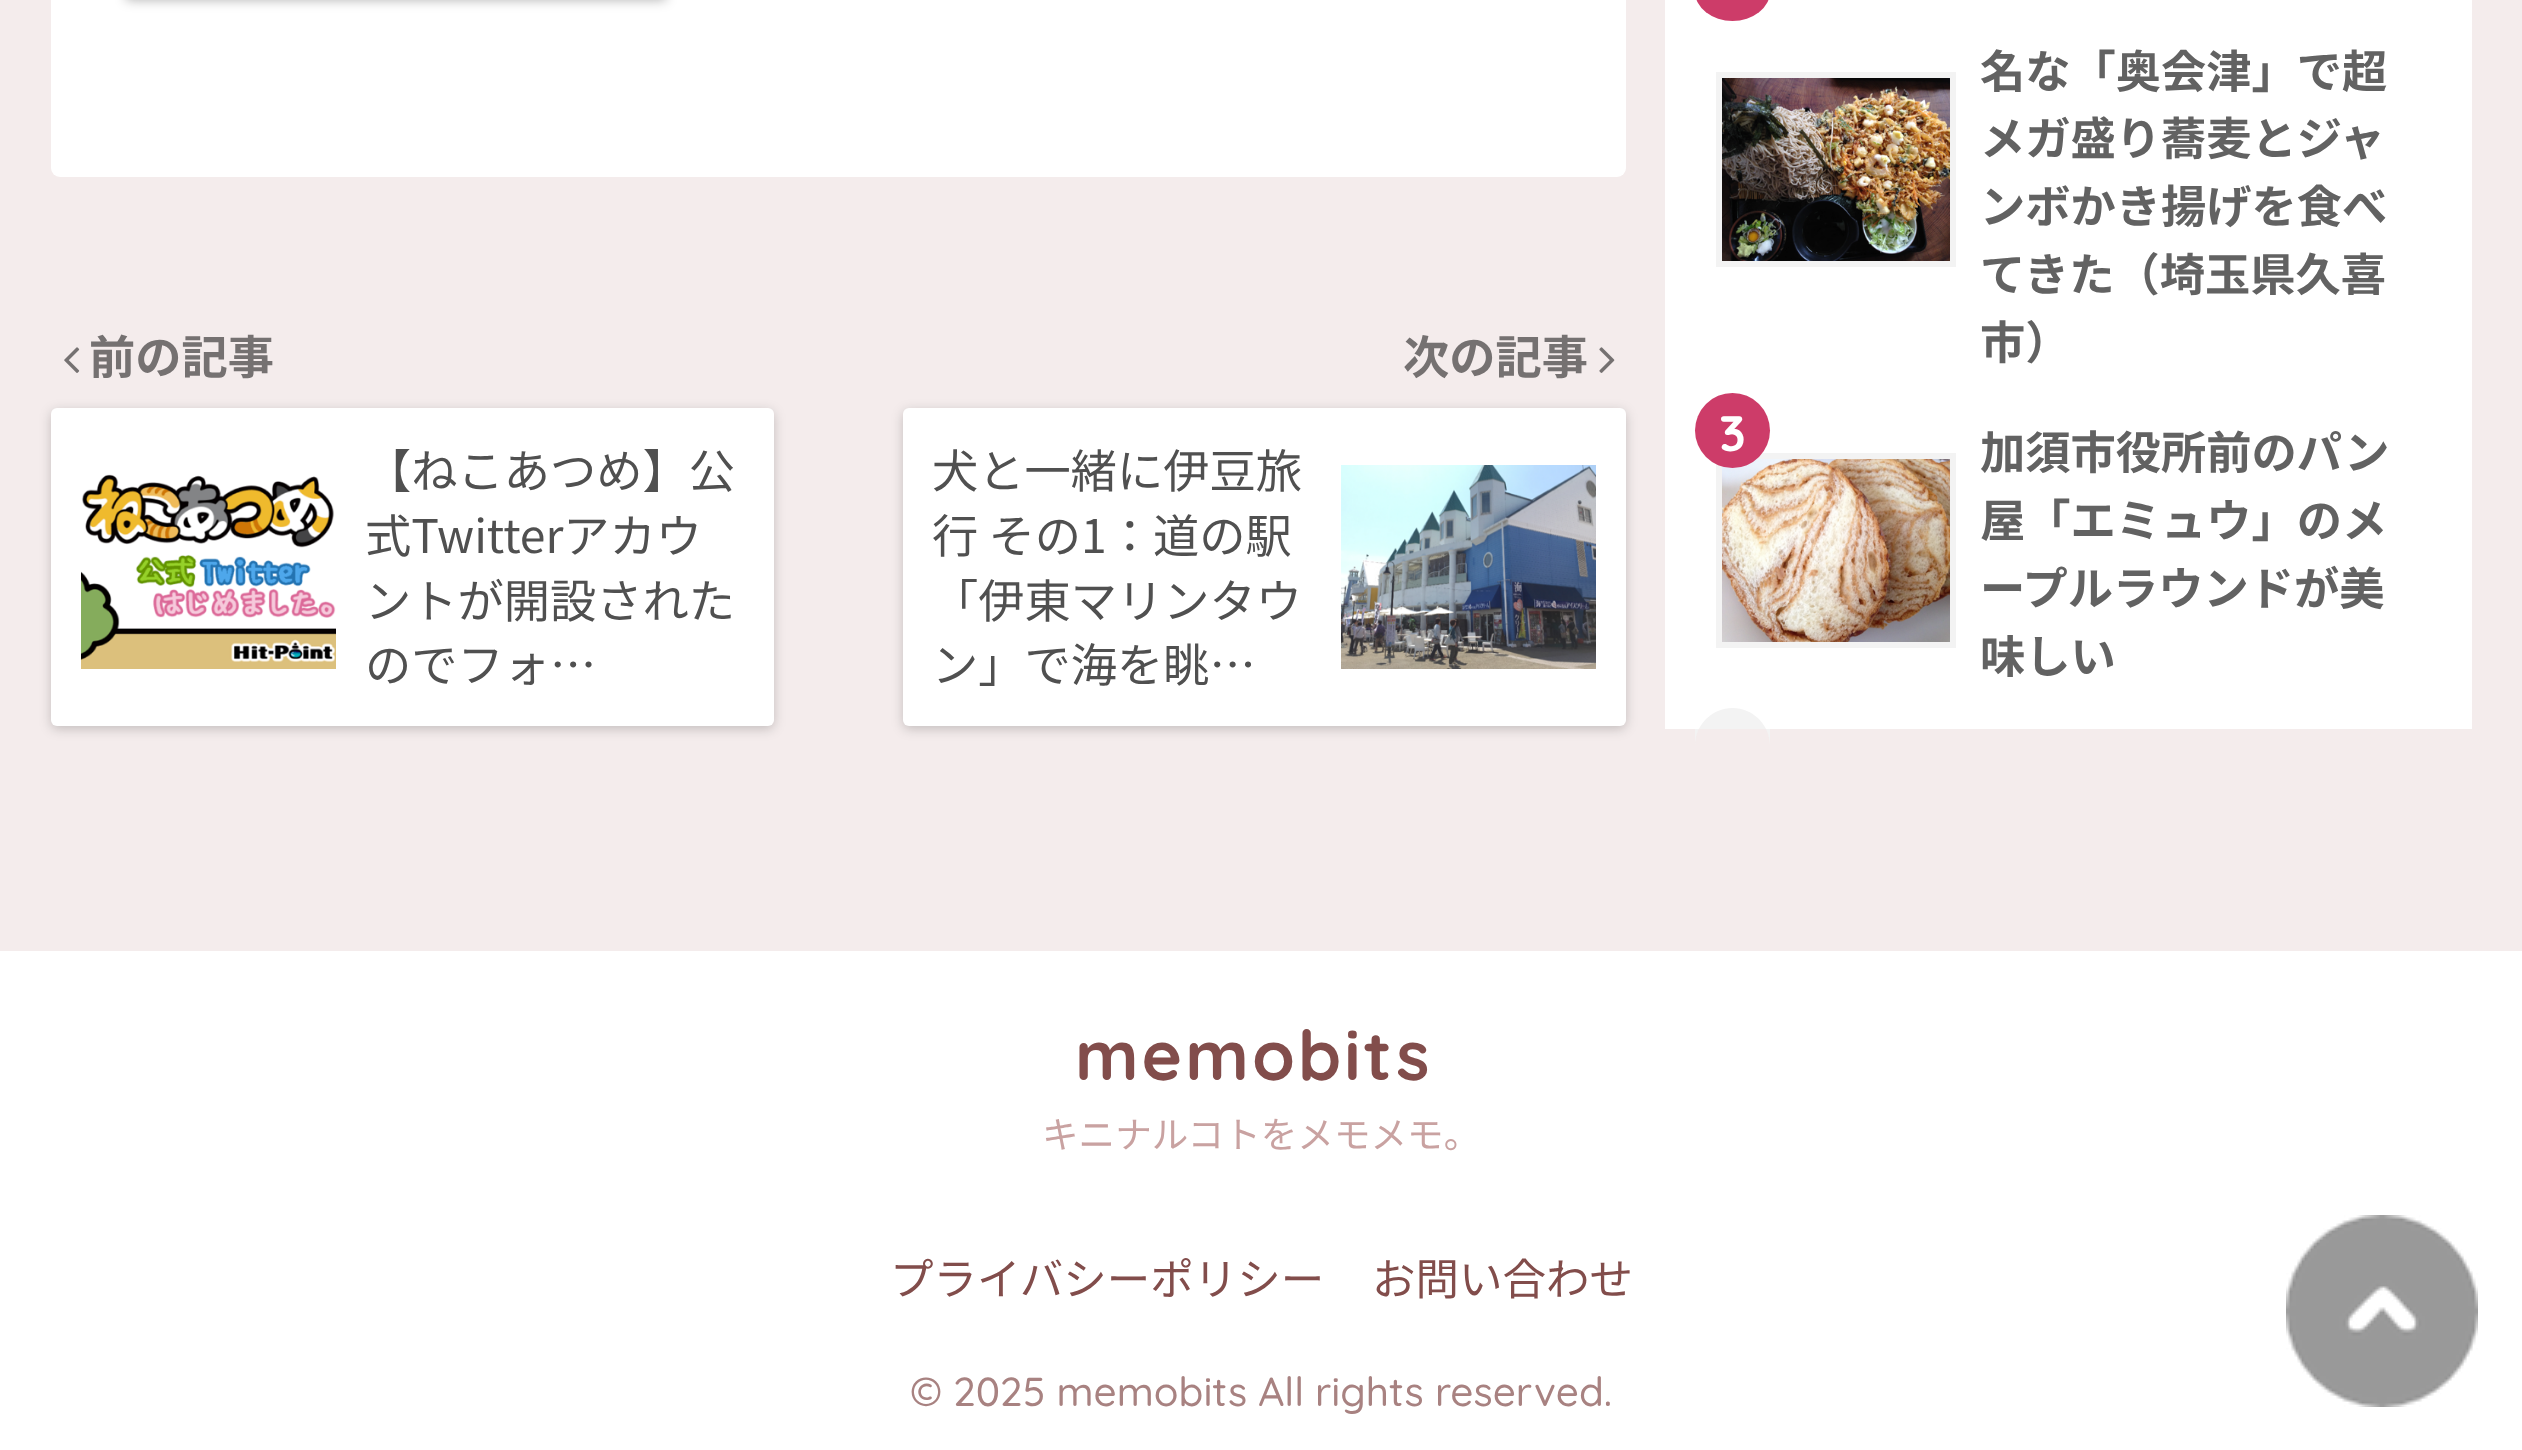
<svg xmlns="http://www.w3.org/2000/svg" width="2522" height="1450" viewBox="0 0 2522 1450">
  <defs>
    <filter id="blur1" x="-50%" y="-200%" width="200%" height="500%"><feGaussianBlur stdDeviation="6"/></filter>
  </defs>
  <rect width="100%" height="100%" fill="#f4ecec"/>
  <rect x="51" y="-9" width="1575" height="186" rx="9" fill="#ffffff"/>
  <rect x="126" y="-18" width="540" height="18" fill="#000000" fill-opacity="0.3" filter="url(#blur1)"/>
  <image x="64" y="347" width="16" height="26" href="img1.png"/>
  <text x="89" y="374" font-family="Noto Sans JP" font-size="46.25" font-weight="bold" fill="#757171">前の記事</text>
  <rect x="51" y="411" width="723" height="318" rx="6" fill="#000000" fill-opacity="0.2" filter="url(#blur1)"/>
  <rect x="51" y="408" width="723" height="318" rx="6" fill="#ffffff"/>
  <image x="81" y="474" width="255" height="195" href="img2.png"/>
  <text x="365" y="488" font-family="Noto Sans JP" font-size="46.25" fill="#505050">【ねこあつめ】公</text>
  <text x="365" y="553" font-family="Noto Sans JP" font-size="46.25" fill="#505050">式Twitterアカウ</text>
  <text x="365" y="618" font-family="Noto Sans JP" font-size="46.25" fill="#505050">ントが開設された</text>
  <text x="365" y="682" font-family="Noto Sans JP" font-size="46.25" fill="#505050">のでフォ…</text>
  <text x="1403" y="374" font-family="Noto Sans JP" font-size="46.25" font-weight="bold" fill="#757171">次の記事</text>
  <image x="1599" y="347" width="16" height="26" href="img3.png"/>
  <rect x="903" y="411" width="723" height="318" rx="6" fill="#000000" fill-opacity="0.2" filter="url(#blur1)"/>
  <rect x="903" y="408" width="723" height="318" rx="6" fill="#ffffff"/>
  <text x="932" y="488" font-family="Noto Sans JP" font-size="46.25" fill="#505050">犬と一緒に伊豆旅</text>
  <text x="932" y="553" font-family="Noto Sans JP" font-size="46.25" fill="#505050">行 その1：道の駅</text>
  <text x="932" y="618" font-family="Noto Sans JP" font-size="46.25" fill="#505050">「伊東マリンタウ</text>
  <text x="932" y="682" font-family="Noto Sans JP" font-size="46.25" fill="#505050">ン」で海を眺…</text>
  <image x="1341" y="465" width="255" height="204" href="img4.png"/>
  <rect x="1665" y="0" width="807" height="729" fill="#ffffff"/>
  <rect x="1695" y="-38" width="75" height="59" rx="37.5" fill="#cd3c69"/>
  <rect x="1719" y="75" width="234" height="189" fill="none" stroke="#f3f3f3" stroke-width="6"/>
  <image x="1722" y="78" width="228" height="183" href="img5.png"/>
  <text x="1980" y="88" font-family="Noto Sans JP" font-size="45.25" font-weight="bold" fill="#626262">名な「奥会津」で超</text>
  <text x="1980" y="155" font-family="Noto Sans JP" font-size="45.25" font-weight="bold" fill="#626262">メガ盛り蕎麦とジャ</text>
  <text x="1980" y="223" font-family="Noto Sans JP" font-size="45.25" font-weight="bold" fill="#626262">ンボかき揚げを食べ</text>
  <text x="1980" y="291" font-family="Noto Sans JP" font-size="45.25" font-weight="bold" fill="#626262">てきた（埼玉県久喜</text>
  <text x="1980" y="359" font-family="Noto Sans JP" font-size="45.25" font-weight="bold" fill="#626262">市）</text>
  <rect x="1719" y="456" width="234" height="189" fill="none" stroke="#f3f3f3" stroke-width="6"/>
  <image x="1722" y="459" width="228" height="183" href="img6.png"/>
  <circle cx="1732.5" cy="430.5" r="37.5" fill="#cd3c69"/>
  <text x="1719" y="451" font-family="Quicksand" font-size="50" font-weight="bold" fill="#ffffff">3</text>
  <text x="1980" y="469" font-family="Noto Sans JP" font-size="45.25" font-weight="bold" fill="#626262">加須市役所前のパン</text>
  <text x="1980" y="537" font-family="Noto Sans JP" font-size="45.25" font-weight="bold" fill="#626262">屋「エミュウ」のメ</text>
  <text x="1980" y="605" font-family="Noto Sans JP" font-size="45.25" font-weight="bold" fill="#626262">ープルラウンドが美</text>
  <text x="1980" y="673" font-family="Noto Sans JP" font-size="45.25" font-weight="bold" fill="#626262">味しい</text>
  <path d="M1732.5 708C1753 708 1770 725 1770 745.5V729H1695V745.5C1695 725 1712 708 1732.5 708Z" fill="#f3f3f3"/>
  <rect x="0" y="951" width="2522" height="499" fill="#ffffff"/>
  <text x="1075" y="1080" font-family="Quicksand" font-size="69" font-weight="bold" letter-spacing="3" fill="#824d4b">memobits</text>
  <text x="1042" y="1148" font-family="Noto Sans JP" font-size="36.6" fill="#c9a2a1">キニナルコトをメモメモ。</text>
  <text x="890" y="1295" font-family="Noto Sans JP" font-size="43.5" fill="#824d4b">プライバシーポリシー</text>
  <text x="1372" y="1295" font-family="Noto Sans JP" font-size="43.5" fill="#824d4b">お問い合わせ</text>
  <text x="910" y="1406" font-family="Quicksand" font-size="40.5" font-weight="500" fill="#a88281">© 2025 memobits All rights reserved.</text>
  <image x="2286" y="1215" width="192" height="192" href="img7.png"/>
</svg>
